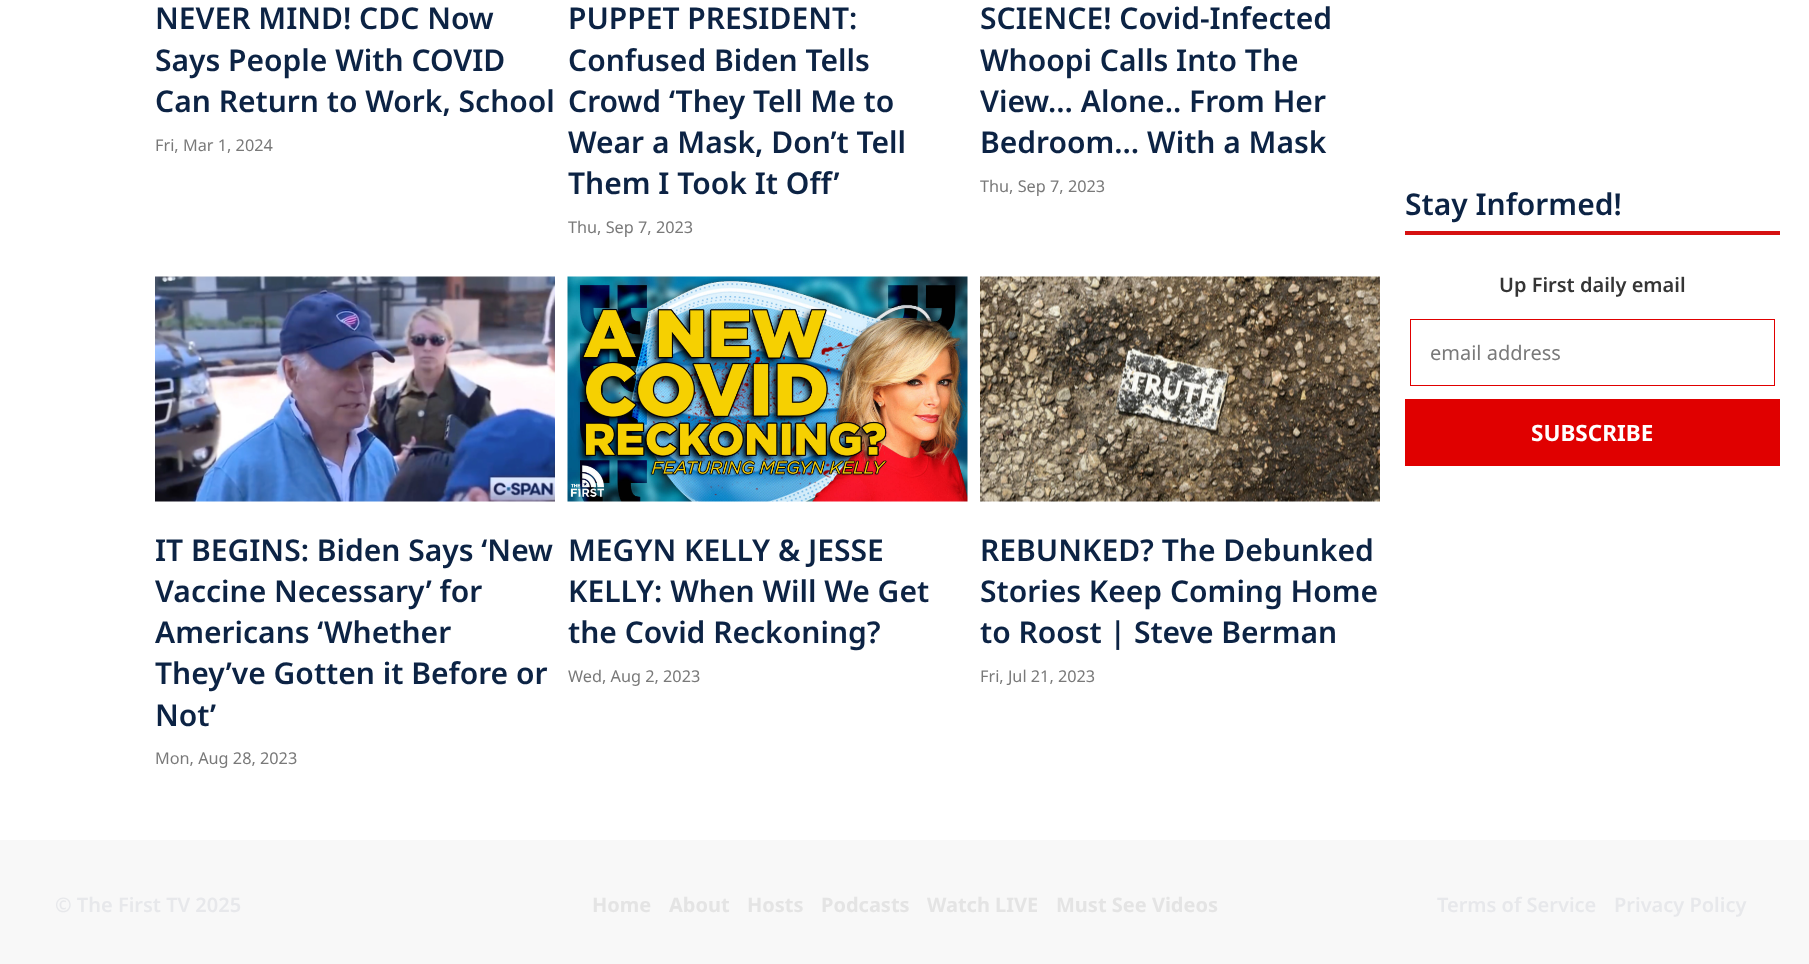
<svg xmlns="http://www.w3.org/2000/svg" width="1809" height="964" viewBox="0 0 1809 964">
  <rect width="100%" height="100%" fill="#ffffff"/>
  <rect x="0" y="840" width="1809" height="124" fill="#f8f8f8"/>
  <text x="155" y="29" font-family="Noto Sans" font-size="30" font-weight="600" fill="#0c2344">NEVER MIND! CDC Now</text>
  <text x="155" y="71" font-family="Noto Sans" font-size="30" font-weight="600" fill="#0c2344">Says People With COVID</text>
  <text x="155" y="112" font-family="Noto Sans" font-size="30" font-weight="600" fill="#0c2344">Can Return to Work, School</text>
  <text x="155" y="151" font-family="Noto Sans" font-size="16.25" fill="#797979">Fri, Mar 1, 2024</text>
  <text x="568" y="29" font-family="Noto Sans" font-size="30" font-weight="600" fill="#0c2344">PUPPET PRESIDENT:</text>
  <text x="568" y="71" font-family="Noto Sans" font-size="30" font-weight="600" fill="#0c2344">Confused Biden Tells</text>
  <text x="568" y="112" font-family="Noto Sans" font-size="30" font-weight="600" fill="#0c2344">Crowd ‘They Tell Me to</text>
  <text x="568" y="153" font-family="Noto Sans" font-size="30" font-weight="600" fill="#0c2344">Wear a Mask, Don’t Tell</text>
  <text x="568" y="194" font-family="Noto Sans" font-size="30" font-weight="600" fill="#0c2344">Them I Took It Off’</text>
  <text x="568" y="233" font-family="Noto Sans" font-size="16.25" fill="#797979">Thu, Sep 7, 2023</text>
  <text x="980" y="29" font-family="Noto Sans" font-size="30" font-weight="600" fill="#0c2344">SCIENCE! Covid-Infected</text>
  <text x="980" y="71" font-family="Noto Sans" font-size="30" font-weight="600" fill="#0c2344">Whoopi Calls Into The</text>
  <text x="980" y="112" font-family="Noto Sans" font-size="30" font-weight="600" fill="#0c2344">View… Alone.. From Her</text>
  <text x="980" y="153" font-family="Noto Sans" font-size="30" font-weight="600" fill="#0c2344">Bedroom… With a Mask</text>
  <text x="980" y="192" font-family="Noto Sans" font-size="16.25" fill="#797979">Thu, Sep 7, 2023</text>
  <image x="155" y="276" width="400" height="226" href="img1.png"/>
  <text x="155" y="561" font-family="Noto Sans" font-size="30" font-weight="600" fill="#0c2344">IT BEGINS: Biden Says ‘New</text>
  <text x="155" y="602" font-family="Noto Sans" font-size="30" font-weight="600" fill="#0c2344">Vaccine Necessary’ for</text>
  <text x="155" y="643" font-family="Noto Sans" font-size="30" font-weight="600" fill="#0c2344">Americans ‘Whether</text>
  <text x="155" y="684" font-family="Noto Sans" font-size="30" font-weight="600" fill="#0c2344">They’ve Gotten it Before or</text>
  <text x="155" y="726" font-family="Noto Sans" font-size="30" font-weight="600" fill="#0c2344">Not’</text>
  <text x="155" y="764" font-family="Noto Sans" font-size="16.25" fill="#797979">Mon, Aug 28, 2023</text>
  <image x="567" y="276" width="401" height="226" href="img2.png"/>
  <text x="568" y="561" font-family="Noto Sans" font-size="30" font-weight="600" fill="#0c2344">MEGYN KELLY &amp; JESSE</text>
  <text x="568" y="602" font-family="Noto Sans" font-size="30" font-weight="600" fill="#0c2344">KELLY: When Will We Get</text>
  <text x="568" y="643" font-family="Noto Sans" font-size="30" font-weight="600" fill="#0c2344">the Covid Reckoning?</text>
  <text x="568" y="682" font-family="Noto Sans" font-size="16.25" fill="#797979">Wed, Aug 2, 2023</text>
  <image x="980" y="276" width="400" height="226" href="img3.png"/>
  <text x="980" y="561" font-family="Noto Sans" font-size="30" font-weight="600" fill="#0c2344">REBUNKED? The Debunked</text>
  <text x="980" y="602" font-family="Noto Sans" font-size="30" font-weight="600" fill="#0c2344">Stories Keep Coming Home</text>
  <text x="980" y="643" font-family="Noto Sans" font-size="30" font-weight="600" fill="#0c2344">to Roost | Steve Berman</text>
  <text x="980" y="682" font-family="Noto Sans" font-size="16.25" fill="#797979">Fri, Jul 21, 2023</text>
  <rect x="1405" y="231" width="375" height="4" fill="#d61111"/>
  <text x="1405" y="215" font-family="Noto Sans" font-size="30" font-weight="600" fill="#0c2344">Stay Informed!</text>
  <text x="1499" y="292" font-family="Noto Sans" font-size="20" font-weight="600" fill="#353535">Up First daily email</text>
  <rect x="1410.5" y="319.5" width="364" height="66" fill="none" stroke="#e00000"/>
  <text x="1430" y="360" font-family="Noto Sans" font-size="20" fill="#797979">email address</text>
  <rect x="1405" y="399" width="375" height="67" fill="#e00000"/>
  <text x="1531" y="441" font-family="Noto Sans" font-size="22.5" font-weight="bold" fill="#ffffff">SUBSCRIBE</text>
  <text x="55" y="912" font-family="Noto Sans" font-size="20" font-weight="600" fill="#e7e8eb">© The First TV 2025</text>
  <text x="592" y="912" font-family="Noto Sans" font-size="20" font-weight="bold" fill="#e4e4e4">Home</text>
  <text x="669" y="912" font-family="Noto Sans" font-size="20" font-weight="bold" fill="#e4e4e4">About</text>
  <text x="747" y="912" font-family="Noto Sans" font-size="20" font-weight="bold" fill="#e4e4e4">Hosts</text>
  <text x="821" y="912" font-family="Noto Sans" font-size="20" font-weight="bold" fill="#e4e4e4">Podcasts</text>
  <text x="927" y="912" font-family="Noto Sans" font-size="20" font-weight="bold" fill="#e4e4e4">Watch LIVE</text>
  <text x="1056" y="912" font-family="Noto Sans" font-size="20" font-weight="bold" fill="#e4e4e4">Must See Videos</text>
  <text x="1437" y="912" font-family="Noto Sans" font-size="20" font-weight="600" fill="#e7e8eb">Terms of Service</text>
  <text x="1614" y="912" font-family="Noto Sans" font-size="20" font-weight="600" fill="#e7e8eb">Privacy Policy</text>
</svg>
